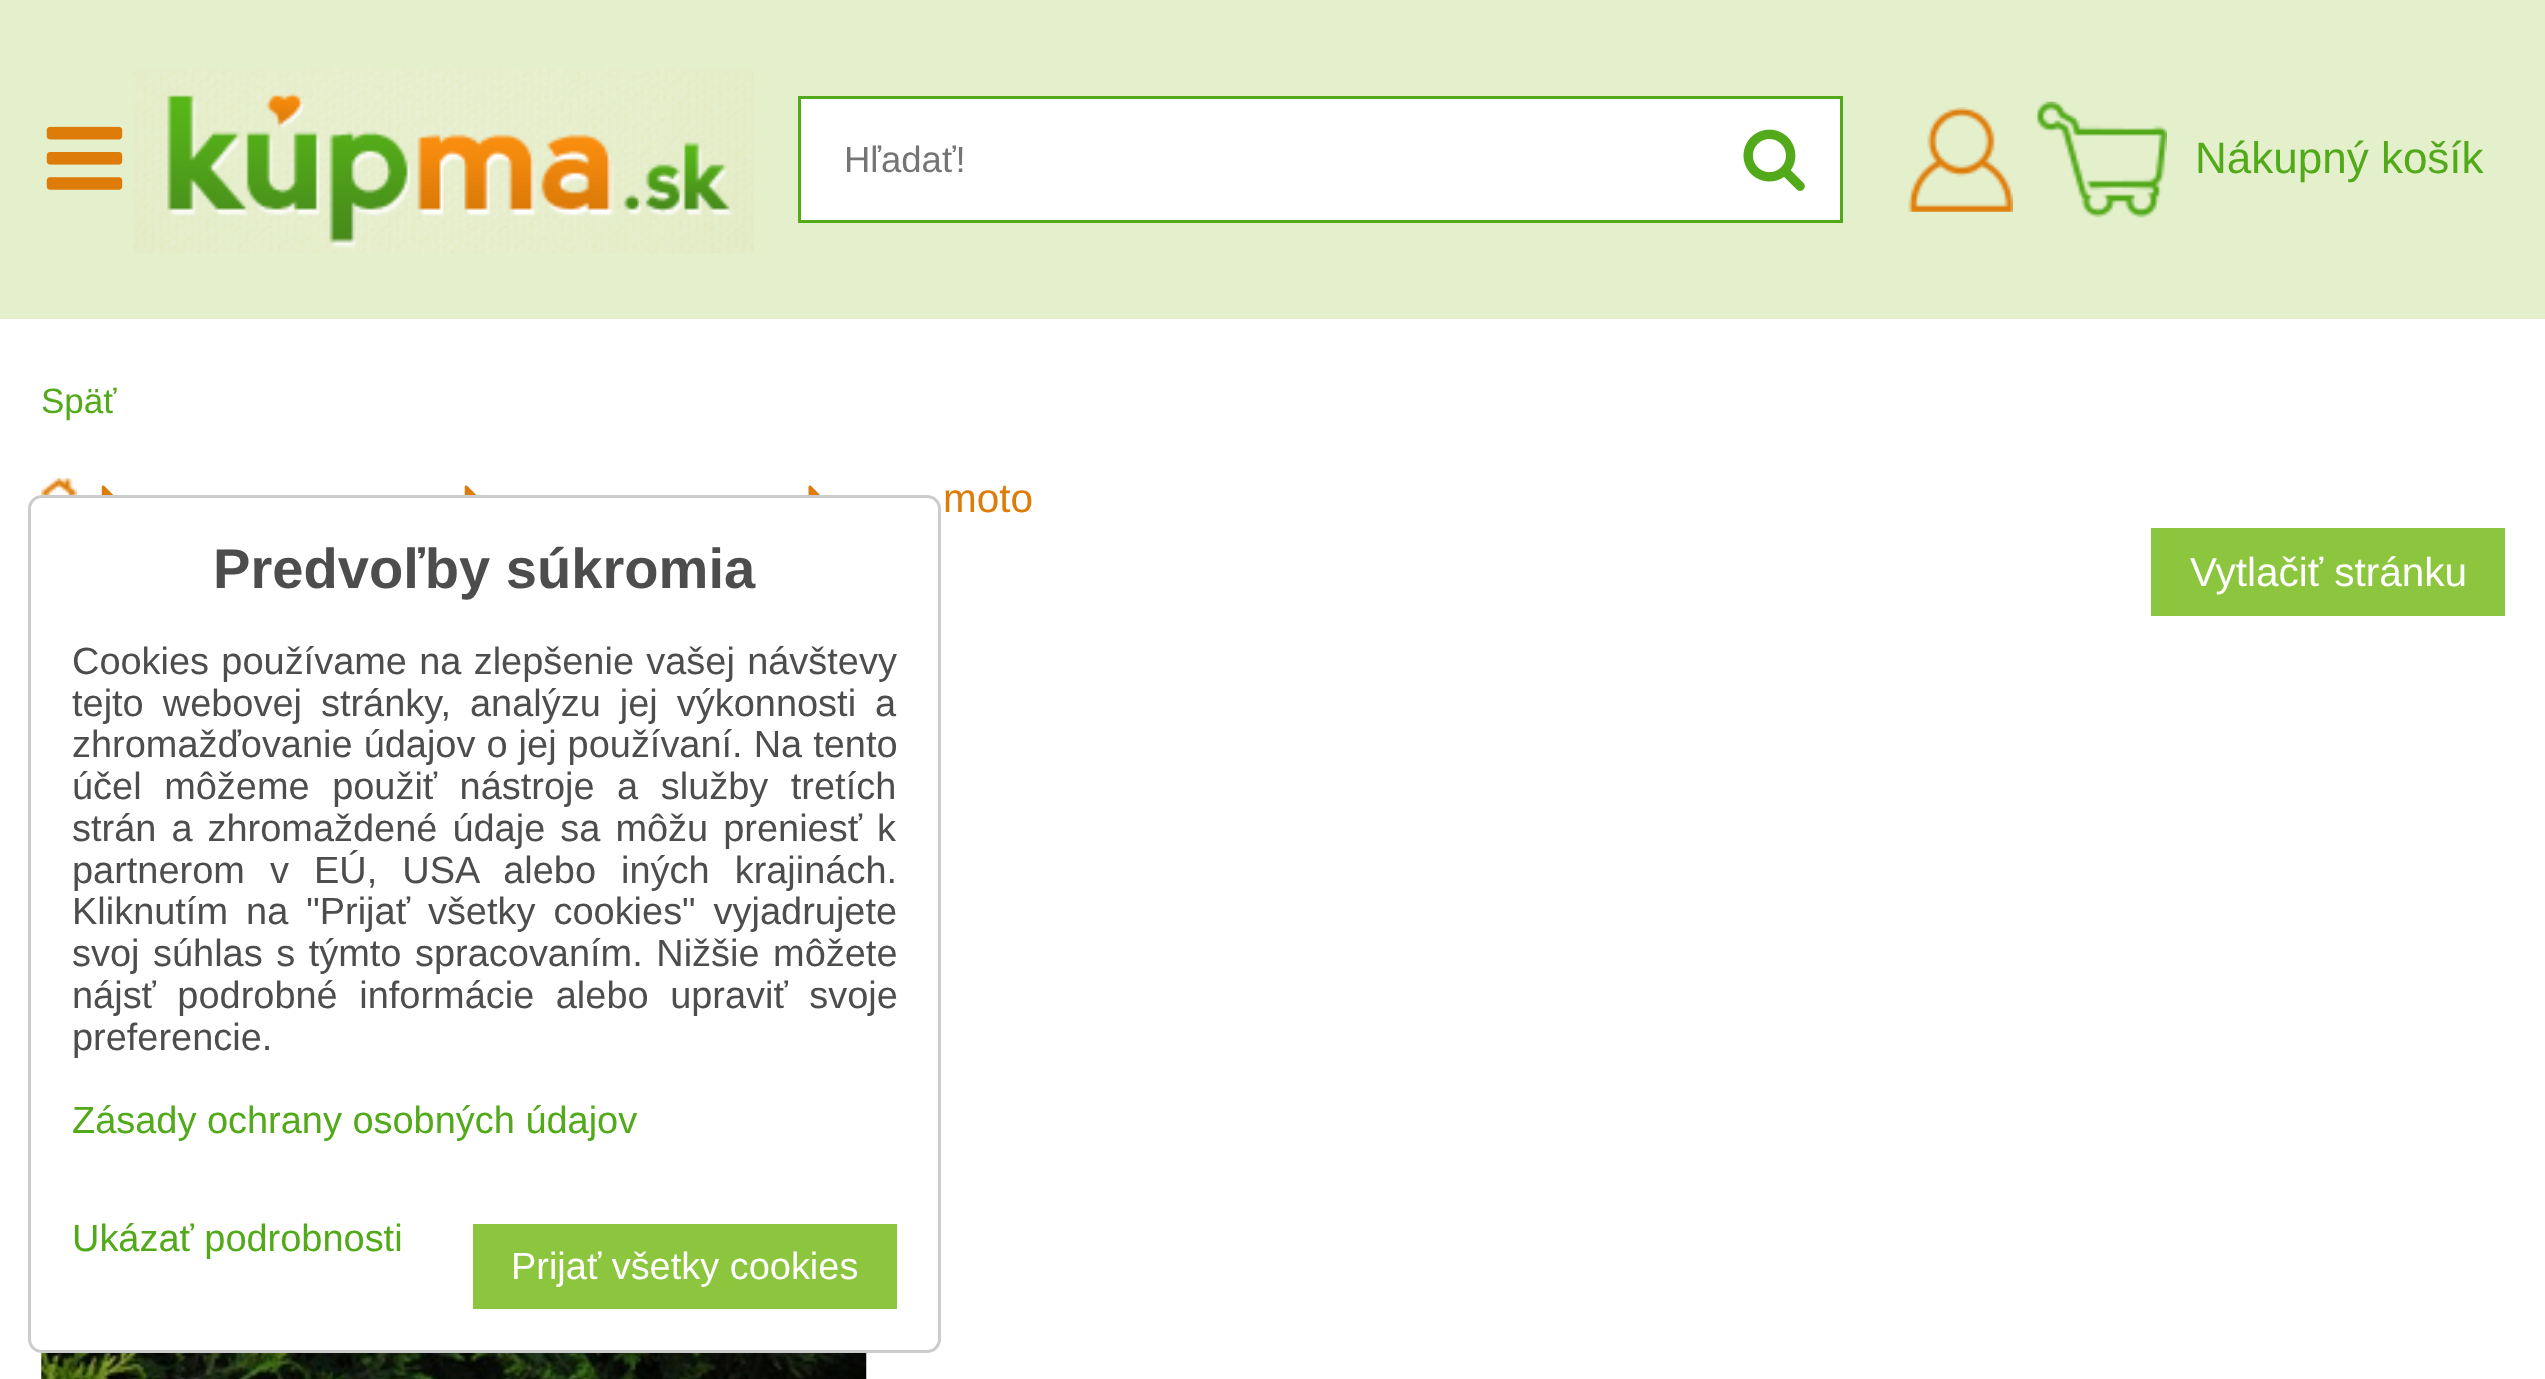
<svg xmlns="http://www.w3.org/2000/svg" width="2545" height="1379" viewBox="0 0 2545 1379">
  <rect width="100%" height="100%" fill="#ffffff"/>
  <rect x="0" y="0" width="2545" height="319" fill="#e4efcc"/>
  <image x="46" y="126" width="77" height="64" href="img1.png"/>
  <image x="132" y="68" width="622" height="185" href="img2.png"/>
  <rect x="799.5" y="97.5" width="1042" height="124" fill="#ffffff" stroke="#52a919" stroke-width="3"/>
  <text x="844" y="172" font-family="Liberation Sans" font-size="36.5" fill="#757575">Hľadať!</text>
  <image x="1743" y="129" width="62" height="62" href="img3.png"/>
  <image x="1908" y="107" width="105" height="105" href="img4.png"/>
  <image x="2035" y="101" width="132" height="117" href="img5.png"/>
  <text x="2195" y="173" font-family="Liberation Sans" font-size="44" fill="#52a919">Nákupný košík</text>
  <text x="41" y="413" font-family="Liberation Sans" font-size="35" fill="#52a919">Späť</text>
  <image x="41" y="478" width="36" height="18" href="img6.png"/>
  <image x="101" y="485" width="13" height="10" href="img7.png"/>
  <image x="464" y="485" width="13" height="10" href="img7.png"/>
  <image x="808" y="485" width="12" height="10" href="img8.png"/>
  <text x="943" y="512" font-family="Liberation Sans" font-size="40.5" fill="#dd7c09">moto</text>
  <rect x="2151" y="528" width="354" height="88" fill="#8cc63f"/>
  <text x="2190" y="586" font-family="Liberation Sans" font-size="40.5" fill="#ffffff">Vytlačiť stránku</text>
  <image x="41" y="1352" width="826" height="27" href="img9.png"/>
  <rect x="29.5" y="496.5" width="910" height="855" rx="12.5" fill="#ffffff" stroke="#cccccc" stroke-width="3"/>
  <text x="213" y="588" font-family="Liberation Sans" font-size="56.1" font-weight="bold" fill="#4d4d4d">Predvoľby súkromia</text>
  <text x="72" y="674" word-spacing="1.75" font-family="Liberation Sans" font-size="37.95" fill="#4d4d4d">Cookies používame na zlepšenie vašej návštevy</text>
  <text x="72" y="716" word-spacing="8.5" font-family="Liberation Sans" font-size="37.95" fill="#4d4d4d">tejto webovej stránky, analýzu jej výkonnosti a</text>
  <text x="72" y="757" word-spacing="0.5" font-family="Liberation Sans" font-size="37.95" fill="#4d4d4d">zhromažďovanie údajov o jej používaní. Na tento</text>
  <text x="72" y="799" word-spacing="12" font-family="Liberation Sans" font-size="37.95" fill="#4d4d4d">účel môžeme použiť nástroje a služby tretích</text>
  <text x="72" y="841" word-spacing="4.5" font-family="Liberation Sans" font-size="37.95" fill="#4d4d4d">strán a zhromaždené údaje sa môžu preniesť k</text>
  <text x="72" y="883" word-spacing="14.5" font-family="Liberation Sans" font-size="37.95" fill="#4d4d4d">partnerom v EÚ, USA alebo iných krajinách.</text>
  <text x="72" y="924" word-spacing="7.5" font-family="Liberation Sans" font-size="37.95" fill="#4d4d4d">Kliknutím na "Prijať všetky cookies" vyjadrujete</text>
  <text x="72" y="966" word-spacing="3" font-family="Liberation Sans" font-size="37.95" fill="#4d4d4d">svoj súhlas s týmto spracovaním. Nižšie môžete</text>
  <text x="72" y="1008" word-spacing="11" font-family="Liberation Sans" font-size="37.95" fill="#4d4d4d">nájsť podrobné informácie alebo upraviť svoje</text>
  <text x="72" y="1050" font-family="Liberation Sans" font-size="37.95" fill="#4d4d4d">preferencie.</text>
  <text x="72" y="1133" font-family="Liberation Sans" font-size="37.95" fill="#52a919">Zásady ochrany osobných údajov</text>
  <text x="72" y="1251" font-family="Liberation Sans" font-size="37.95" fill="#52a919">Ukázať podrobnosti</text>
  <rect x="473" y="1224" width="424" height="85" fill="#8cc63f"/>
  <text x="511" y="1279" font-family="Liberation Sans" font-size="37.95" fill="#ffffff">Prijať všetky cookies</text>
</svg>
